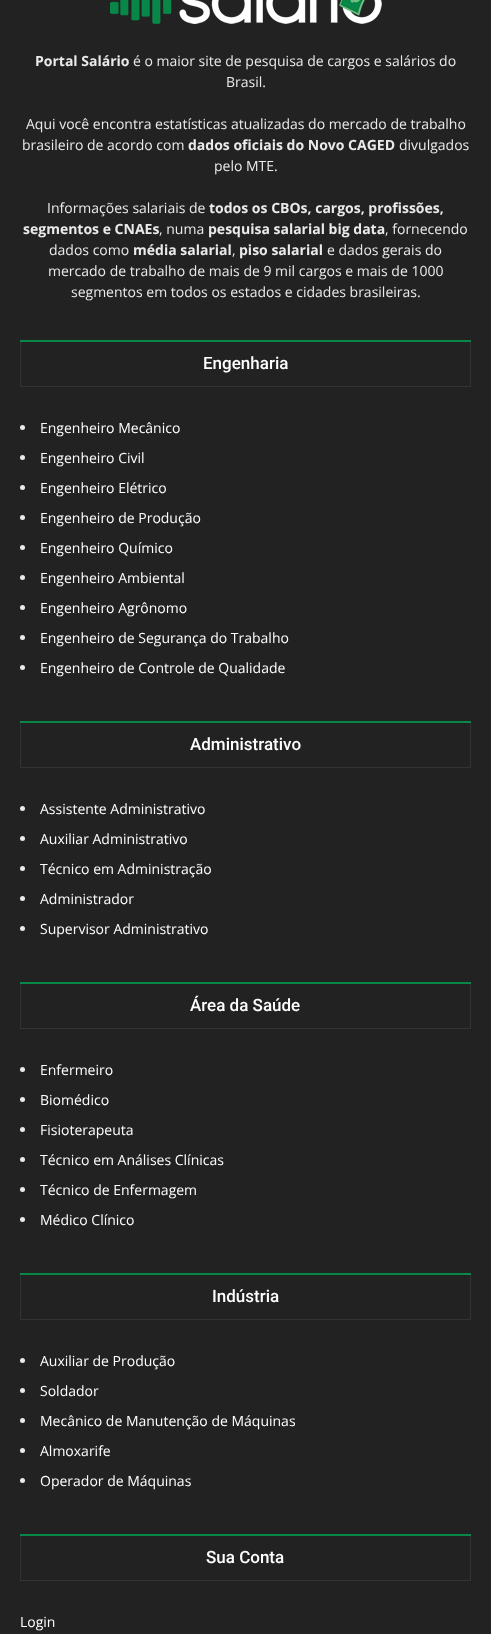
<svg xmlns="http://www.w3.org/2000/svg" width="491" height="1634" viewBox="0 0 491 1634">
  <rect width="100%" height="100%" fill="#222222"/>
  <image x="110" y="0" width="272" height="24" href="img1.png"/>
  <text x="35" y="66" font-family="Open Sans" font-size="14" font-weight="bold" fill="#eaeaea">Portal Salário</text>
  <text x="133" y="66" font-family="Open Sans" font-size="14" fill="#eaeaea">é o maior site de pesquisa de cargos e salários do</text>
  <text x="226" y="87" font-family="Open Sans" font-size="14" fill="#eaeaea">Brasil.</text>
  <text x="26" y="129" font-family="Open Sans" font-size="14" fill="#eaeaea">Aqui você encontra estatísticas atualizadas do mercado de trabalho</text>
  <text x="22" y="150" font-family="Open Sans" font-size="14" fill="#eaeaea">brasileiro de acordo com</text>
  <text x="188" y="150" font-family="Open Sans" font-size="14" font-weight="bold" fill="#eaeaea">dados oficiais do Novo CAGED</text>
  <text x="399" y="150" font-family="Open Sans" font-size="14" fill="#eaeaea">divulgados</text>
  <text x="214" y="171" font-family="Open Sans" font-size="14" fill="#eaeaea">pelo MTE.</text>
  <text x="47" y="213" font-family="Open Sans" font-size="14" fill="#eaeaea">Informações salariais de</text>
  <text x="209" y="213" font-family="Open Sans" font-size="14" font-weight="bold" fill="#eaeaea">todos os CBOs, cargos, profissões,</text>
  <text x="23" y="234" font-family="Open Sans" font-size="14" font-weight="bold" fill="#eaeaea">segmentos e CNAEs</text>
  <text x="159" y="234" font-family="Open Sans" font-size="14" fill="#eaeaea">, numa</text>
  <text x="208" y="234" font-family="Open Sans" font-size="14" font-weight="bold" fill="#eaeaea">pesquisa salarial big data</text>
  <text x="385" y="234" font-family="Open Sans" font-size="14" fill="#eaeaea">, fornecendo</text>
  <text x="49" y="255" font-family="Open Sans" font-size="14" fill="#eaeaea">dados como</text>
  <text x="133" y="255" font-family="Open Sans" font-size="14" font-weight="bold" fill="#eaeaea">média salarial</text>
  <text x="232" y="255" font-family="Open Sans" font-size="14" fill="#eaeaea">,</text>
  <text x="239" y="255" font-family="Open Sans" font-size="14" font-weight="bold" fill="#eaeaea">piso salarial</text>
  <text x="327" y="255" font-family="Open Sans" font-size="14" fill="#eaeaea">e dados gerais do</text>
  <text x="48" y="276" font-family="Open Sans" font-size="14" fill="#eaeaea">mercado de trabalho de mais de 9 mil cargos e mais de 1000</text>
  <text x="71" y="297" font-family="Open Sans" font-size="14" fill="#eaeaea">segmentos em todos os estados e cidades brasileiras.</text>
  <rect x="20.5" y="340.5" width="450" height="46" fill="none" stroke="#333333"/>
  <rect x="20" y="340" width="451" height="2" fill="#098749"/>
  <text x="203" y="369" font-family="Roboto" font-size="17" font-weight="500" fill="#ffffff">Engenharia</text>
  <circle cx="22.5" cy="427.5" r="2.5" fill="#eaeaea"/>
  <text x="40" y="433" font-family="Open Sans" font-size="14" fill="#ffffff">Engenheiro Mecânico</text>
  <circle cx="22.5" cy="457.5" r="2.5" fill="#eaeaea"/>
  <text x="40" y="463" font-family="Open Sans" font-size="14" fill="#ffffff">Engenheiro Civil</text>
  <circle cx="22.5" cy="487.5" r="2.5" fill="#eaeaea"/>
  <text x="40" y="493" font-family="Open Sans" font-size="14" fill="#ffffff">Engenheiro Elétrico</text>
  <circle cx="22.5" cy="517.5" r="2.5" fill="#eaeaea"/>
  <text x="40" y="523" font-family="Open Sans" font-size="14" fill="#ffffff">Engenheiro de Produção</text>
  <circle cx="22.5" cy="547.5" r="2.5" fill="#eaeaea"/>
  <text x="40" y="553" font-family="Open Sans" font-size="14" fill="#ffffff">Engenheiro Químico</text>
  <circle cx="22.5" cy="577.5" r="2.5" fill="#eaeaea"/>
  <text x="40" y="583" font-family="Open Sans" font-size="14" fill="#ffffff">Engenheiro Ambiental</text>
  <circle cx="22.5" cy="607.5" r="2.5" fill="#eaeaea"/>
  <text x="40" y="613" font-family="Open Sans" font-size="14" fill="#ffffff">Engenheiro Agrônomo</text>
  <circle cx="22.5" cy="637.5" r="2.5" fill="#eaeaea"/>
  <text x="40" y="643" font-family="Open Sans" font-size="14" fill="#ffffff">Engenheiro de Segurança do Trabalho</text>
  <circle cx="22.5" cy="667.5" r="2.5" fill="#eaeaea"/>
  <text x="40" y="673" font-family="Open Sans" font-size="14" fill="#ffffff">Engenheiro de Controle de Qualidade</text>
  <rect x="20.5" y="721.5" width="450" height="46" fill="none" stroke="#333333"/>
  <rect x="20" y="721" width="451" height="2" fill="#098749"/>
  <text x="190" y="750" font-family="Roboto" font-size="17" font-weight="500" fill="#ffffff">Administrativo</text>
  <circle cx="22.5" cy="808.5" r="2.5" fill="#eaeaea"/>
  <text x="40" y="814" font-family="Open Sans" font-size="14" fill="#ffffff">Assistente Administrativo</text>
  <circle cx="22.5" cy="838.5" r="2.5" fill="#eaeaea"/>
  <text x="40" y="844" font-family="Open Sans" font-size="14" fill="#ffffff">Auxiliar Administrativo</text>
  <circle cx="22.5" cy="868.5" r="2.5" fill="#eaeaea"/>
  <text x="40" y="874" font-family="Open Sans" font-size="14" fill="#ffffff">Técnico em Administração</text>
  <circle cx="22.5" cy="898.5" r="2.5" fill="#eaeaea"/>
  <text x="40" y="904" font-family="Open Sans" font-size="14" fill="#ffffff">Administrador</text>
  <circle cx="22.5" cy="928.5" r="2.5" fill="#eaeaea"/>
  <text x="40" y="934" font-family="Open Sans" font-size="14" fill="#ffffff">Supervisor Administrativo</text>
  <rect x="20.5" y="982.5" width="450" height="46" fill="none" stroke="#333333"/>
  <rect x="20" y="982" width="451" height="2" fill="#098749"/>
  <text x="190" y="1011" font-family="Roboto" font-size="17" font-weight="500" fill="#ffffff">Área da Saúde</text>
  <circle cx="22.5" cy="1069.5" r="2.5" fill="#eaeaea"/>
  <text x="40" y="1075" font-family="Open Sans" font-size="14" fill="#ffffff">Enfermeiro</text>
  <circle cx="22.5" cy="1099.5" r="2.5" fill="#eaeaea"/>
  <text x="40" y="1105" font-family="Open Sans" font-size="14" fill="#ffffff">Biomédico</text>
  <circle cx="22.5" cy="1129.5" r="2.5" fill="#eaeaea"/>
  <text x="40" y="1135" font-family="Open Sans" font-size="14" fill="#ffffff">Fisioterapeuta</text>
  <circle cx="22.5" cy="1159.5" r="2.5" fill="#eaeaea"/>
  <text x="40" y="1165" font-family="Open Sans" font-size="14" fill="#ffffff">Técnico em Análises Clínicas</text>
  <circle cx="22.5" cy="1189.5" r="2.5" fill="#eaeaea"/>
  <text x="40" y="1195" font-family="Open Sans" font-size="14" fill="#ffffff">Técnico de Enfermagem</text>
  <circle cx="22.5" cy="1219.5" r="2.5" fill="#eaeaea"/>
  <text x="40" y="1225" font-family="Open Sans" font-size="14" fill="#ffffff">Médico Clínico</text>
  <rect x="20.5" y="1273.5" width="450" height="46" fill="none" stroke="#333333"/>
  <rect x="20" y="1273" width="451" height="2" fill="#098749"/>
  <text x="212" y="1302" font-family="Roboto" font-size="17" font-weight="500" fill="#ffffff">Indústria</text>
  <circle cx="22.5" cy="1360.5" r="2.5" fill="#eaeaea"/>
  <text x="40" y="1366" font-family="Open Sans" font-size="14" fill="#ffffff">Auxiliar de Produção</text>
  <circle cx="22.5" cy="1390.5" r="2.5" fill="#eaeaea"/>
  <text x="40" y="1396" font-family="Open Sans" font-size="14" fill="#ffffff">Soldador</text>
  <circle cx="22.5" cy="1420.5" r="2.5" fill="#eaeaea"/>
  <text x="40" y="1426" font-family="Open Sans" font-size="14" fill="#ffffff">Mecânico de Manutenção de Máquinas</text>
  <circle cx="22.5" cy="1450.5" r="2.5" fill="#eaeaea"/>
  <text x="40" y="1456" font-family="Open Sans" font-size="14" fill="#ffffff">Almoxarife</text>
  <circle cx="22.5" cy="1480.5" r="2.5" fill="#eaeaea"/>
  <text x="40" y="1486" font-family="Open Sans" font-size="14" fill="#ffffff">Operador de Máquinas</text>
  <rect x="20.5" y="1534.5" width="450" height="46" fill="none" stroke="#333333"/>
  <rect x="20" y="1534" width="451" height="2" fill="#098749"/>
  <text x="206" y="1563" font-family="Roboto" font-size="17" font-weight="500" fill="#ffffff">Sua Conta</text>
  <text x="20" y="1627" font-family="Open Sans" font-size="14" fill="#ffffff">Login</text>
</svg>
